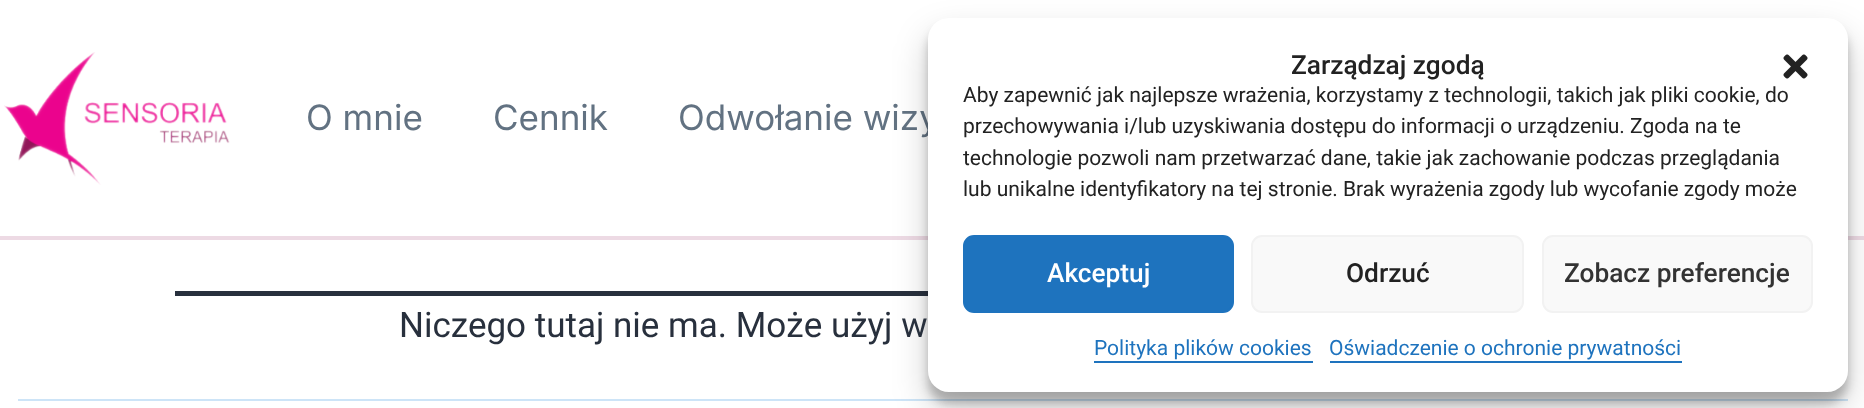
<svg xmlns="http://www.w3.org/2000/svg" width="1864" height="408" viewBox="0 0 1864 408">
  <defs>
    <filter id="blur1" x="-50%" y="-200%" width="200%" height="500%"><feGaussianBlur stdDeviation="5"/></filter>
    <filter id="blur2" x="-50%" y="-200%" width="200%" height="500%"><feGaussianBlur stdDeviation="17.5"/></filter>
    <clipPath id="clip1"><rect x="963" y="79" width="850" height="121"/></clipPath>
  </defs>
  <rect width="100%" height="100%" fill="#ffffff"/>
  <rect x="0" y="236" width="1864" height="4" fill="#eddae4"/>
  <image x="4" y="52" width="226" height="133" href="img1.png"/>
  <text x="306" y="130" font-family="Inter" font-size="35" fill="#627282">O mnie</text>
  <text x="493" y="130" font-family="Inter" font-size="35" fill="#627282">Cennik</text>
  <text x="678" y="130" font-family="Inter" font-size="35" fill="#627282">Odwołanie wizy</text>
  <rect x="175" y="291" width="753" height="5" fill="#28303d"/>
  <rect x="18" y="399" width="1830" height="2" fill="#cde4f7"/>
  <rect x="928" y="28" width="920" height="375" rx="21" fill="#000000" fill-opacity="0.23" filter="url(#blur1)"/>
  <rect x="928" y="35" width="920" height="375" rx="21" fill="#000000" fill-opacity="0.19" filter="url(#blur2)"/>
  <rect x="928" y="18" width="920" height="374" rx="21" fill="#ffffff"/>
  <text x="1291" y="74" font-family="Roboto" font-size="26.25" font-weight="500" fill="#222222">Zarządzaj zgodą</text>
  <image x="1783" y="54" width="25" height="25" href="img2.png"/>
  <text x="963" y="102" font-family="Roboto" font-size="21" fill="#222222">Aby zapewnić jak najlepsze wrażenia, korzystamy z technologii, takich jak pliki cookie, do</text>
  <text x="963" y="133" font-family="Roboto" font-size="21" fill="#222222">przechowywania i/lub uzyskiwania dostępu do informacji o urządzeniu. Zgoda na te</text>
  <text x="963" y="165" font-family="Roboto" font-size="21" fill="#222222">technologie pozwoli nam przetwarzać dane, takie jak zachowanie podczas przeglądania</text>
  <g clip-path="url(#clip1)">
    <text x="963" y="196" font-family="Roboto" font-size="21" fill="#222222">lub unikalne identyfikatory na tej stronie. Brak wyrażenia zgody lub wycofanie zgody może</text>
  </g>
  <rect x="964" y="236" width="269" height="76" rx="10" fill="#1e73be" stroke="#1e73be" stroke-width="2"/>
  <text x="1047" y="282" font-family="Roboto" font-size="26.25" font-weight="500" fill="#ffffff">Akceptuj</text>
  <rect x="1252" y="236" width="271" height="76" rx="10" fill="#f9f9f9" stroke="#f2f2f2" stroke-width="2"/>
  <text x="1346" y="282" font-family="Roboto" font-size="26.25" font-weight="500" fill="#222222">Odrzuć</text>
  <rect x="1543" y="236" width="269" height="76" rx="10" fill="#f9f9f9" stroke="#f2f2f2" stroke-width="2"/>
  <text x="1564" y="282" font-family="Roboto" font-size="26.25" font-weight="500" fill="#333333">Zobacz preferencje</text>
  <text x="1094" y="355" font-family="Roboto" font-size="21" fill="#1e73be">Polityka plików cookies</text>
  <rect x="1094" y="361" width="219" height="2" fill="#1e73be"/>
  <text x="1329" y="355" font-family="Roboto" font-size="21" fill="#1e73be">Oświadczenie o ochronie prywatności</text>
  <rect x="1330" y="361" width="352" height="2" fill="#1e73be"/>
  <text x="399" y="337" font-family="Roboto" font-size="35" fill="#28303d">Niczego tutaj nie ma. Może użyj w</text>
</svg>
